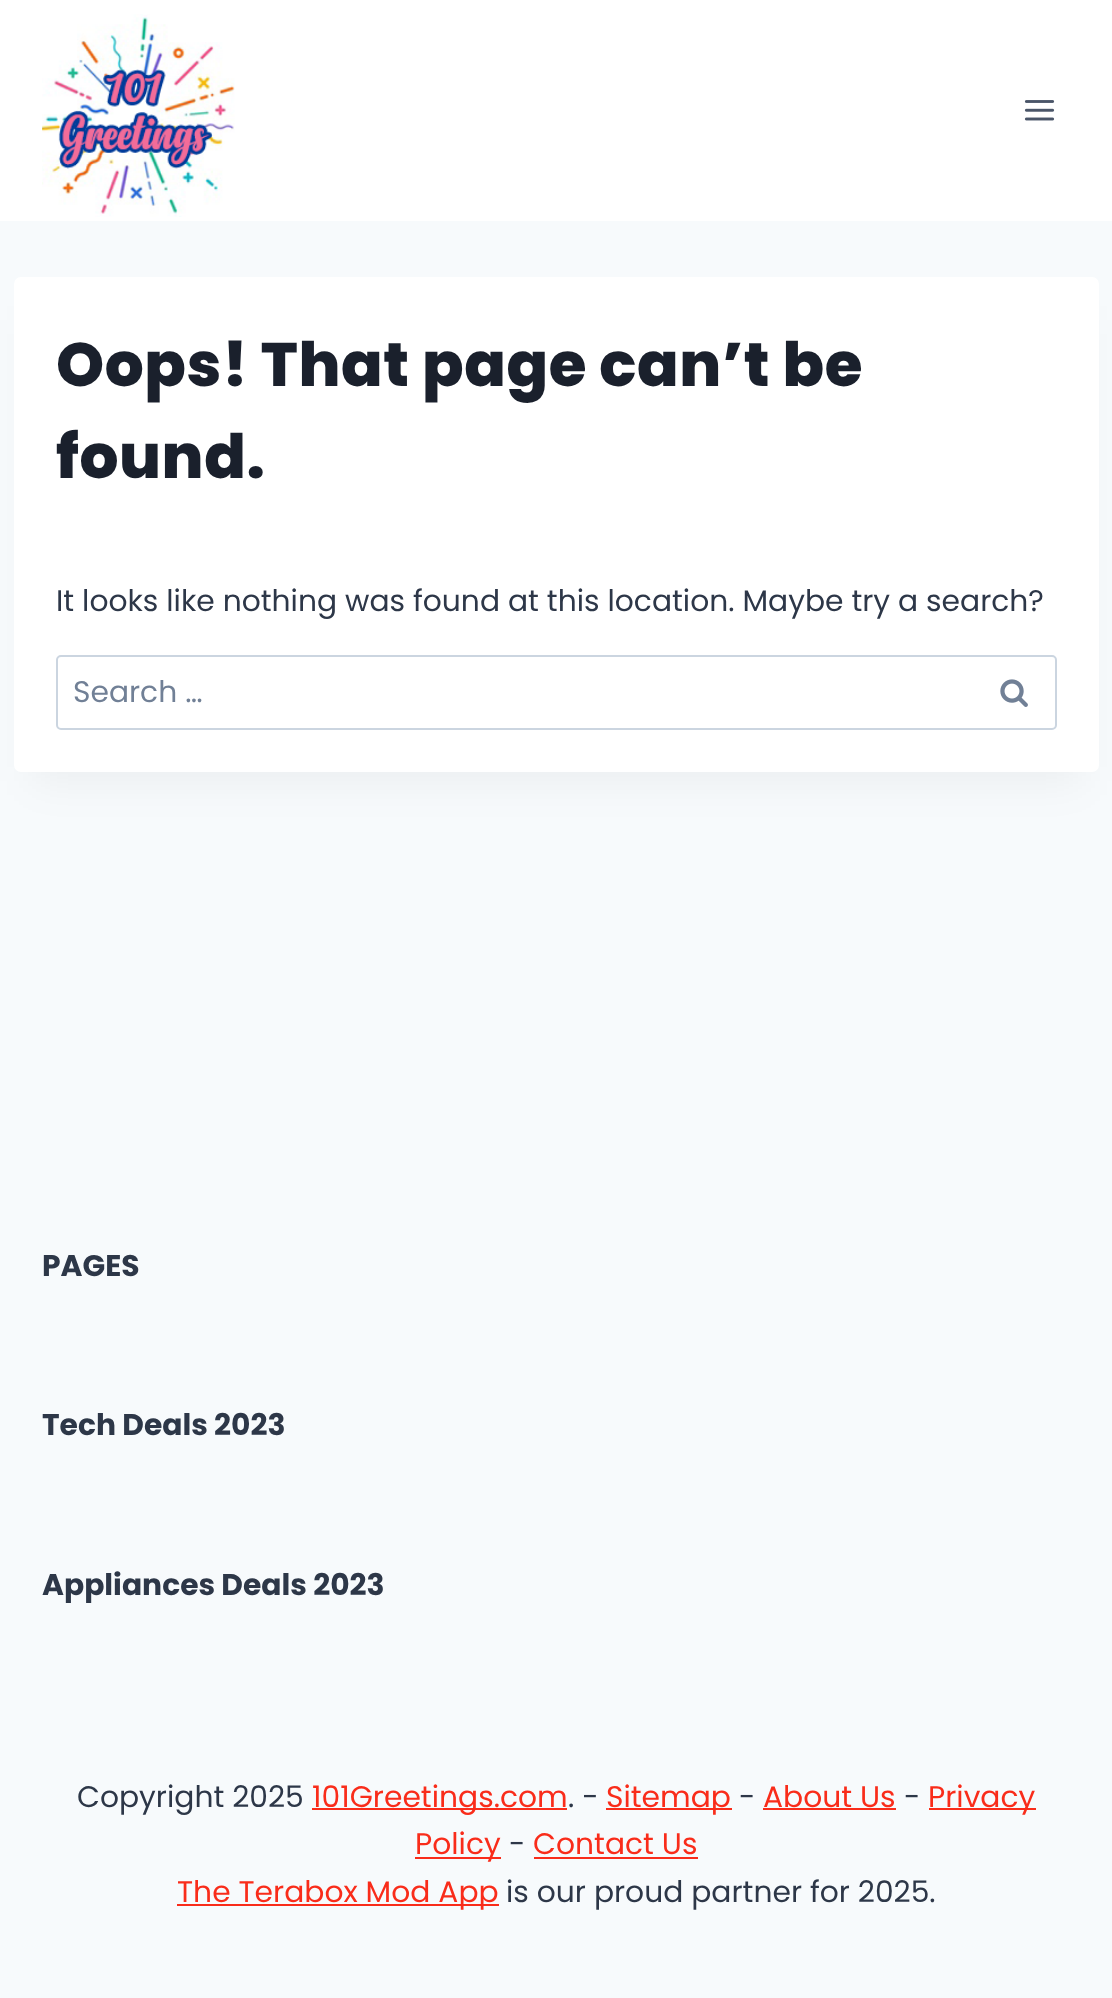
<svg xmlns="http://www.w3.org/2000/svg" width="1112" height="1998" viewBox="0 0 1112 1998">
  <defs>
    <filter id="blur1" x="-50%" y="-200%" width="200%" height="500%"><feGaussianBlur stdDeviation="22"/></filter>
  </defs>
  <rect width="100%" height="100%" fill="#f7fafc"/>
  <rect x="0" y="0" width="1112" height="221" fill="#ffffff"/>
  <image x="42" y="14" width="193" height="203" href="img1.png"/>
  <image x="1024" y="100" width="31" height="21" href="img2.png"/>
  <rect x="32" y="320" width="1050" height="461" fill="#000000" fill-opacity="0.05" filter="url(#blur1)"/>
  <rect x="14" y="277" width="1085" height="495" rx="7" fill="#ffffff"/>
  <text x="56" y="386" font-family="Poppins" font-size="61.25" font-weight="800" letter-spacing="0.6" fill="#1a202c">Oops! That page can’t be</text>
  <text x="56" y="478" font-family="Poppins" font-size="61.25" font-weight="800" letter-spacing="0.6" fill="#1a202c">found.</text>
  <text x="56" y="611" font-family="Poppins" font-size="29.75" fill="#2d3748">It looks like nothing was found at this location. Maybe try a search?</text>
  <rect x="57" y="656" width="999" height="73" rx="4" fill="none" stroke="#cbd5e0" stroke-width="2"/>
  <text x="73" y="702" font-family="Poppins" font-size="29.75" fill="#718096">Search …</text>
  <image x="1000" y="679" width="28" height="28" href="img3.png"/>
  <text x="42" y="1276" font-family="Poppins" font-size="29.75" font-weight="bold" fill="#2d3748">PAGES</text>
  <text x="42" y="1435" font-family="Poppins" font-size="29.75" font-weight="bold" fill="#2d3748">Tech Deals 2023</text>
  <text x="42" y="1595" font-family="Poppins" font-size="29.75" font-weight="bold" fill="#2d3748">Appliances Deals 2023</text>
  <text x="77" y="1807" font-family="Poppins" font-size="29.75" fill="#2d3748">Copyright 2025</text>
  <rect x="312" y="1808" width="255" height="2" fill="#f92c1a"/>
  <text x="312" y="1807" font-family="Poppins" font-size="29.75" fill="#f92c1a">101Greetings.com</text>
  <text x="568" y="1807" font-family="Poppins" font-size="29.75" fill="#2d3748">. -</text>
  <rect x="606" y="1808" width="126" height="2" fill="#f92c1a"/>
  <text x="606" y="1807" font-family="Poppins" font-size="29.75" fill="#f92c1a">Sitemap</text>
  <text x="739" y="1807" font-family="Poppins" font-size="29.75" fill="#2d3748">-</text>
  <text x="763" y="1807" font-family="Poppins" font-size="29.75" fill="#f92c1a">About Us</text>
  <rect x="763" y="1808" width="133" height="2" fill="#f92c1a"/>
  <text x="904" y="1807" font-family="Poppins" font-size="29.75" fill="#2d3748">-</text>
  <rect x="929" y="1808" width="107" height="2" fill="#f92c1a"/>
  <text x="928" y="1807" font-family="Poppins" font-size="29.75" fill="#f92c1a">Privacy</text>
  <rect x="415" y="1857" width="86" height="2" fill="#f92c1a"/>
  <text x="415" y="1854" font-family="Poppins" font-size="29.75" fill="#f92c1a">Policy</text>
  <text x="509" y="1854" font-family="Poppins" font-size="29.75" fill="#2d3748">-</text>
  <text x="533" y="1854" font-family="Poppins" font-size="29.75" fill="#f92c1a">Contact Us</text>
  <rect x="534" y="1857" width="164" height="2" fill="#f92c1a"/>
  <rect x="177" y="1904" width="322" height="2" fill="#f92c1a"/>
  <text x="177" y="1902" font-family="Poppins" font-size="29.75" fill="#f92c1a">The Terabox Mod App</text>
  <text x="506" y="1902" font-family="Poppins" font-size="29.75" fill="#2d3748">is our proud partner for 2025.</text>
</svg>
